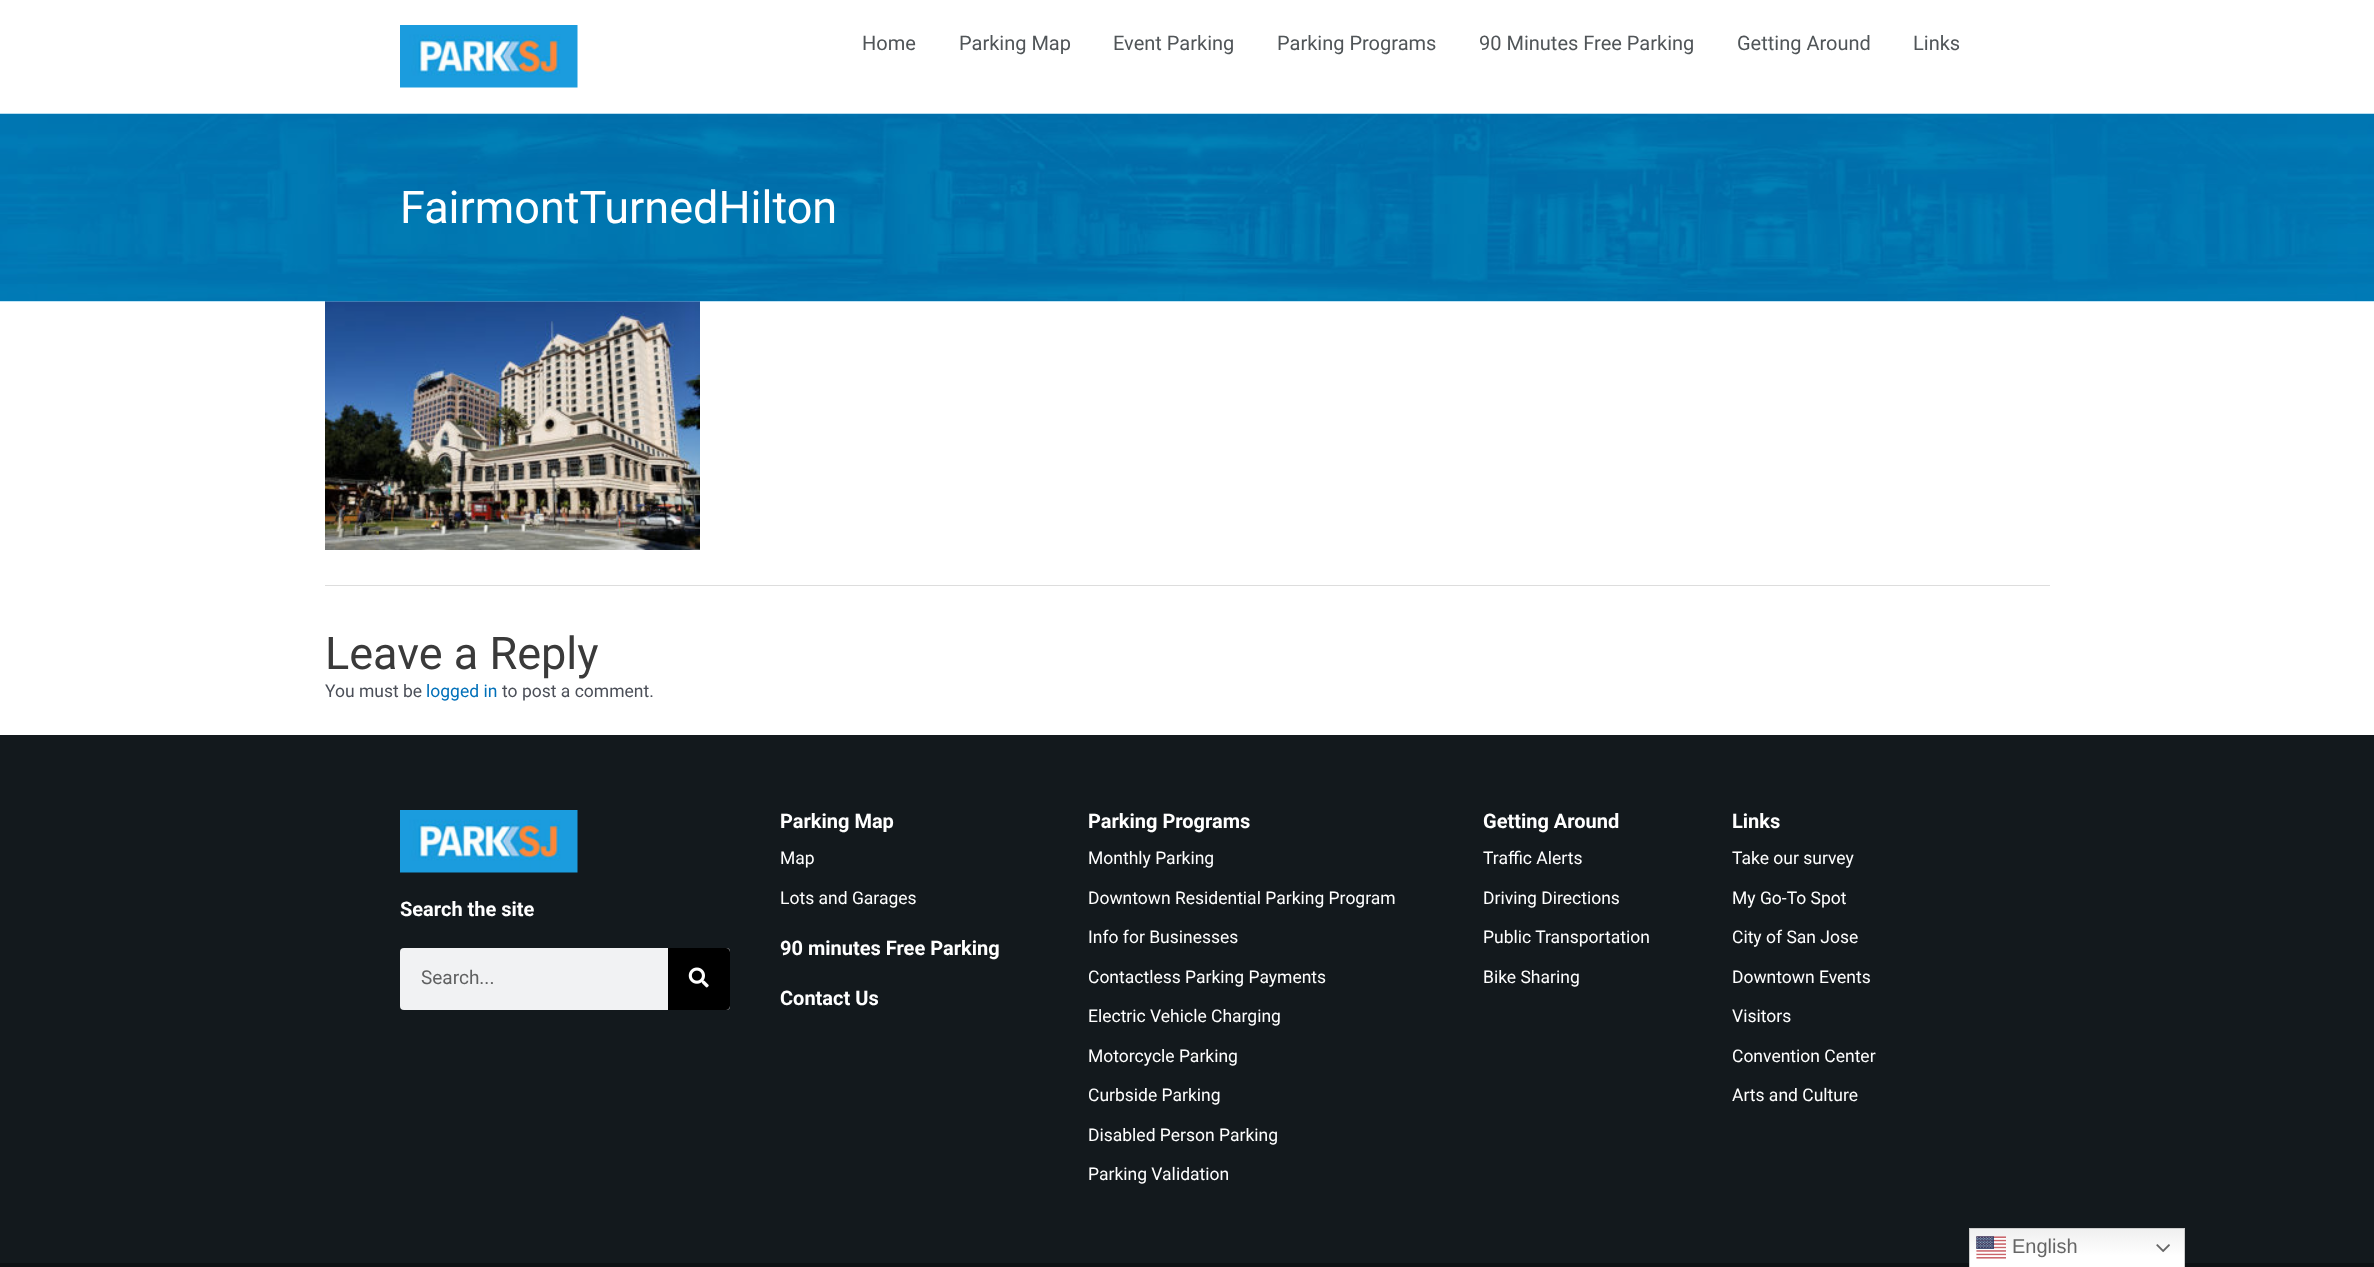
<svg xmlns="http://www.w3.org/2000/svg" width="2374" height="1267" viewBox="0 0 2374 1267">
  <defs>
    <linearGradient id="g1" gradientUnits="userSpaceOnUse" x1="2077" y1="1228" x2="2077" y2="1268"><stop offset="0" stop-color="#efefef"/><stop offset="0.7" stop-color="#ffffff"/></linearGradient>
  </defs>
  <rect width="100%" height="100%" fill="#ffffff"/>
  <rect x="0" y="113" width="2374" height="1" fill="#f5f5f5"/>
  <image x="400" y="25" width="178" height="63" href="img1.png"/>
  <text x="862" y="50" font-family="Roboto" font-size="20" fill="#505558">Home</text>
  <text x="959" y="50" font-family="Roboto" font-size="20" fill="#505558">Parking Map</text>
  <text x="1113" y="50" font-family="Roboto" font-size="20" fill="#505558">Event Parking</text>
  <text x="1277" y="50" font-family="Roboto" font-size="20" fill="#505558">Parking Programs</text>
  <text x="1479" y="50" font-family="Roboto" font-size="20" fill="#505558">90 Minutes Free Parking</text>
  <text x="1737" y="50" font-family="Roboto" font-size="20" fill="#505558">Getting Around</text>
  <text x="1913" y="50" font-family="Roboto" font-size="20" fill="#505558">Links</text>
  <image x="325" y="301" width="375" height="249" href="img3.png"/>
  <image x="0" y="113" width="2374" height="189" href="img2.png"/>
  <text x="400" y="223" font-family="Roboto" font-size="45" fill="#ffffff">FairmontTurnedHilton</text>
  <rect x="325" y="585" width="1725" height="1" fill="#dddddd"/>
  <text x="325" y="669" font-family="Roboto" font-size="45" fill="#3a3a3a">Leave a Reply</text>
  <text x="325" y="697" font-family="Roboto" font-size="17.5" fill="#4b4f58">You must be</text>
  <text x="426" y="697" font-family="Roboto" font-size="17.5" fill="#0170b9">logged in</text>
  <text x="502" y="697" font-family="Roboto" font-size="17.5" fill="#4b4f58">to post a comment.</text>
  <rect x="0" y="735" width="2374" height="528" fill="#13191d"/>
  <image x="400" y="810" width="178" height="63" href="img4.png"/>
  <text x="400" y="916" font-family="Roboto" font-size="20" font-weight="bold" fill="#ffffff">Search the site</text>
  <rect x="400" y="948" width="330" height="62" rx="4" fill="#f1f2f3"/>
  <text x="421" y="984" font-family="Roboto" font-size="19" fill="#606161">Search...</text>
  <path d="M668 948H726C728 948 730 950 730 952V1006C730 1008 728 1010 726 1010H668Z" fill="#000000"/>
  <image x="688" y="967" width="21" height="21" href="img5.png"/>
  <text x="780" y="828" font-family="Roboto" font-size="20" font-weight="bold" fill="#ffffff">Parking Map</text>
  <text x="780" y="864" font-family="Roboto" font-size="17.5" fill="#ffffff">Map</text>
  <text x="780" y="904" font-family="Roboto" font-size="17.5" fill="#ffffff">Lots and Garages</text>
  <text x="780" y="955" font-family="Roboto" font-size="20" font-weight="bold" fill="#ffffff">90 minutes Free Parking</text>
  <text x="780" y="1005" font-family="Roboto" font-size="20" font-weight="bold" fill="#ffffff">Contact Us</text>
  <text x="1088" y="828" font-family="Roboto" font-size="20" font-weight="bold" fill="#ffffff">Parking Programs</text>
  <text x="1088" y="864" font-family="Roboto" font-size="17.5" fill="#ffffff">Monthly Parking</text>
  <text x="1088" y="904" font-family="Roboto" font-size="17.5" fill="#ffffff">Downtown Residential Parking Program</text>
  <text x="1088" y="943" font-family="Roboto" font-size="17.5" fill="#ffffff">Info for Businesses</text>
  <text x="1088" y="983" font-family="Roboto" font-size="17.5" fill="#ffffff">Contactless Parking Payments</text>
  <text x="1088" y="1022" font-family="Roboto" font-size="17.5" fill="#ffffff">Electric Vehicle Charging</text>
  <text x="1088" y="1062" font-family="Roboto" font-size="17.5" fill="#ffffff">Motorcycle Parking</text>
  <text x="1088" y="1101" font-family="Roboto" font-size="17.5" fill="#ffffff">Curbside Parking</text>
  <text x="1088" y="1141" font-family="Roboto" font-size="17.5" fill="#ffffff">Disabled Person Parking</text>
  <text x="1088" y="1180" font-family="Roboto" font-size="17.5" fill="#ffffff">Parking Validation</text>
  <text x="1483" y="828" font-family="Roboto" font-size="20" font-weight="bold" fill="#ffffff">Getting Around</text>
  <text x="1483" y="864" font-family="Roboto" font-size="17.5" fill="#ffffff">Traffic Alerts</text>
  <text x="1483" y="904" font-family="Roboto" font-size="17.5" fill="#ffffff">Driving Directions</text>
  <text x="1483" y="943" font-family="Roboto" font-size="17.5" fill="#ffffff">Public Transportation</text>
  <text x="1483" y="983" font-family="Roboto" font-size="17.5" fill="#ffffff">Bike Sharing</text>
  <text x="1732" y="828" font-family="Roboto" font-size="20" font-weight="bold" fill="#ffffff">Links</text>
  <text x="1732" y="864" font-family="Roboto" font-size="17.5" fill="#ffffff">Take our survey</text>
  <text x="1732" y="904" font-family="Roboto" font-size="17.5" fill="#ffffff">My Go-To Spot</text>
  <text x="1732" y="943" font-family="Roboto" font-size="17.5" fill="#ffffff">City of San Jose</text>
  <text x="1732" y="983" font-family="Roboto" font-size="17.5" fill="#ffffff">Downtown Events</text>
  <text x="1732" y="1022" font-family="Roboto" font-size="17.5" fill="#ffffff">Visitors</text>
  <text x="1732" y="1062" font-family="Roboto" font-size="17.5" fill="#ffffff">Convention Center</text>
  <text x="1732" y="1101" font-family="Roboto" font-size="17.5" fill="#ffffff">Arts and Culture</text>
  <rect x="0" y="1263" width="2374" height="4" fill="#0d1114"/>
  <rect x="1970" y="1229" width="214" height="38" fill="url(#g1)"/>
  <rect x="1969.5" y="1228.5" width="215" height="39" fill="none" stroke="#cccccc"/>
  <image x="1976" y="1236" width="30" height="23" href="img6.png"/>
  <text x="2012" y="1253" font-family="Liberation Sans" font-size="20" fill="#666666">English</text>
  <image x="2156" y="1244" width="14" height="9" href="img7.png"/>
</svg>
